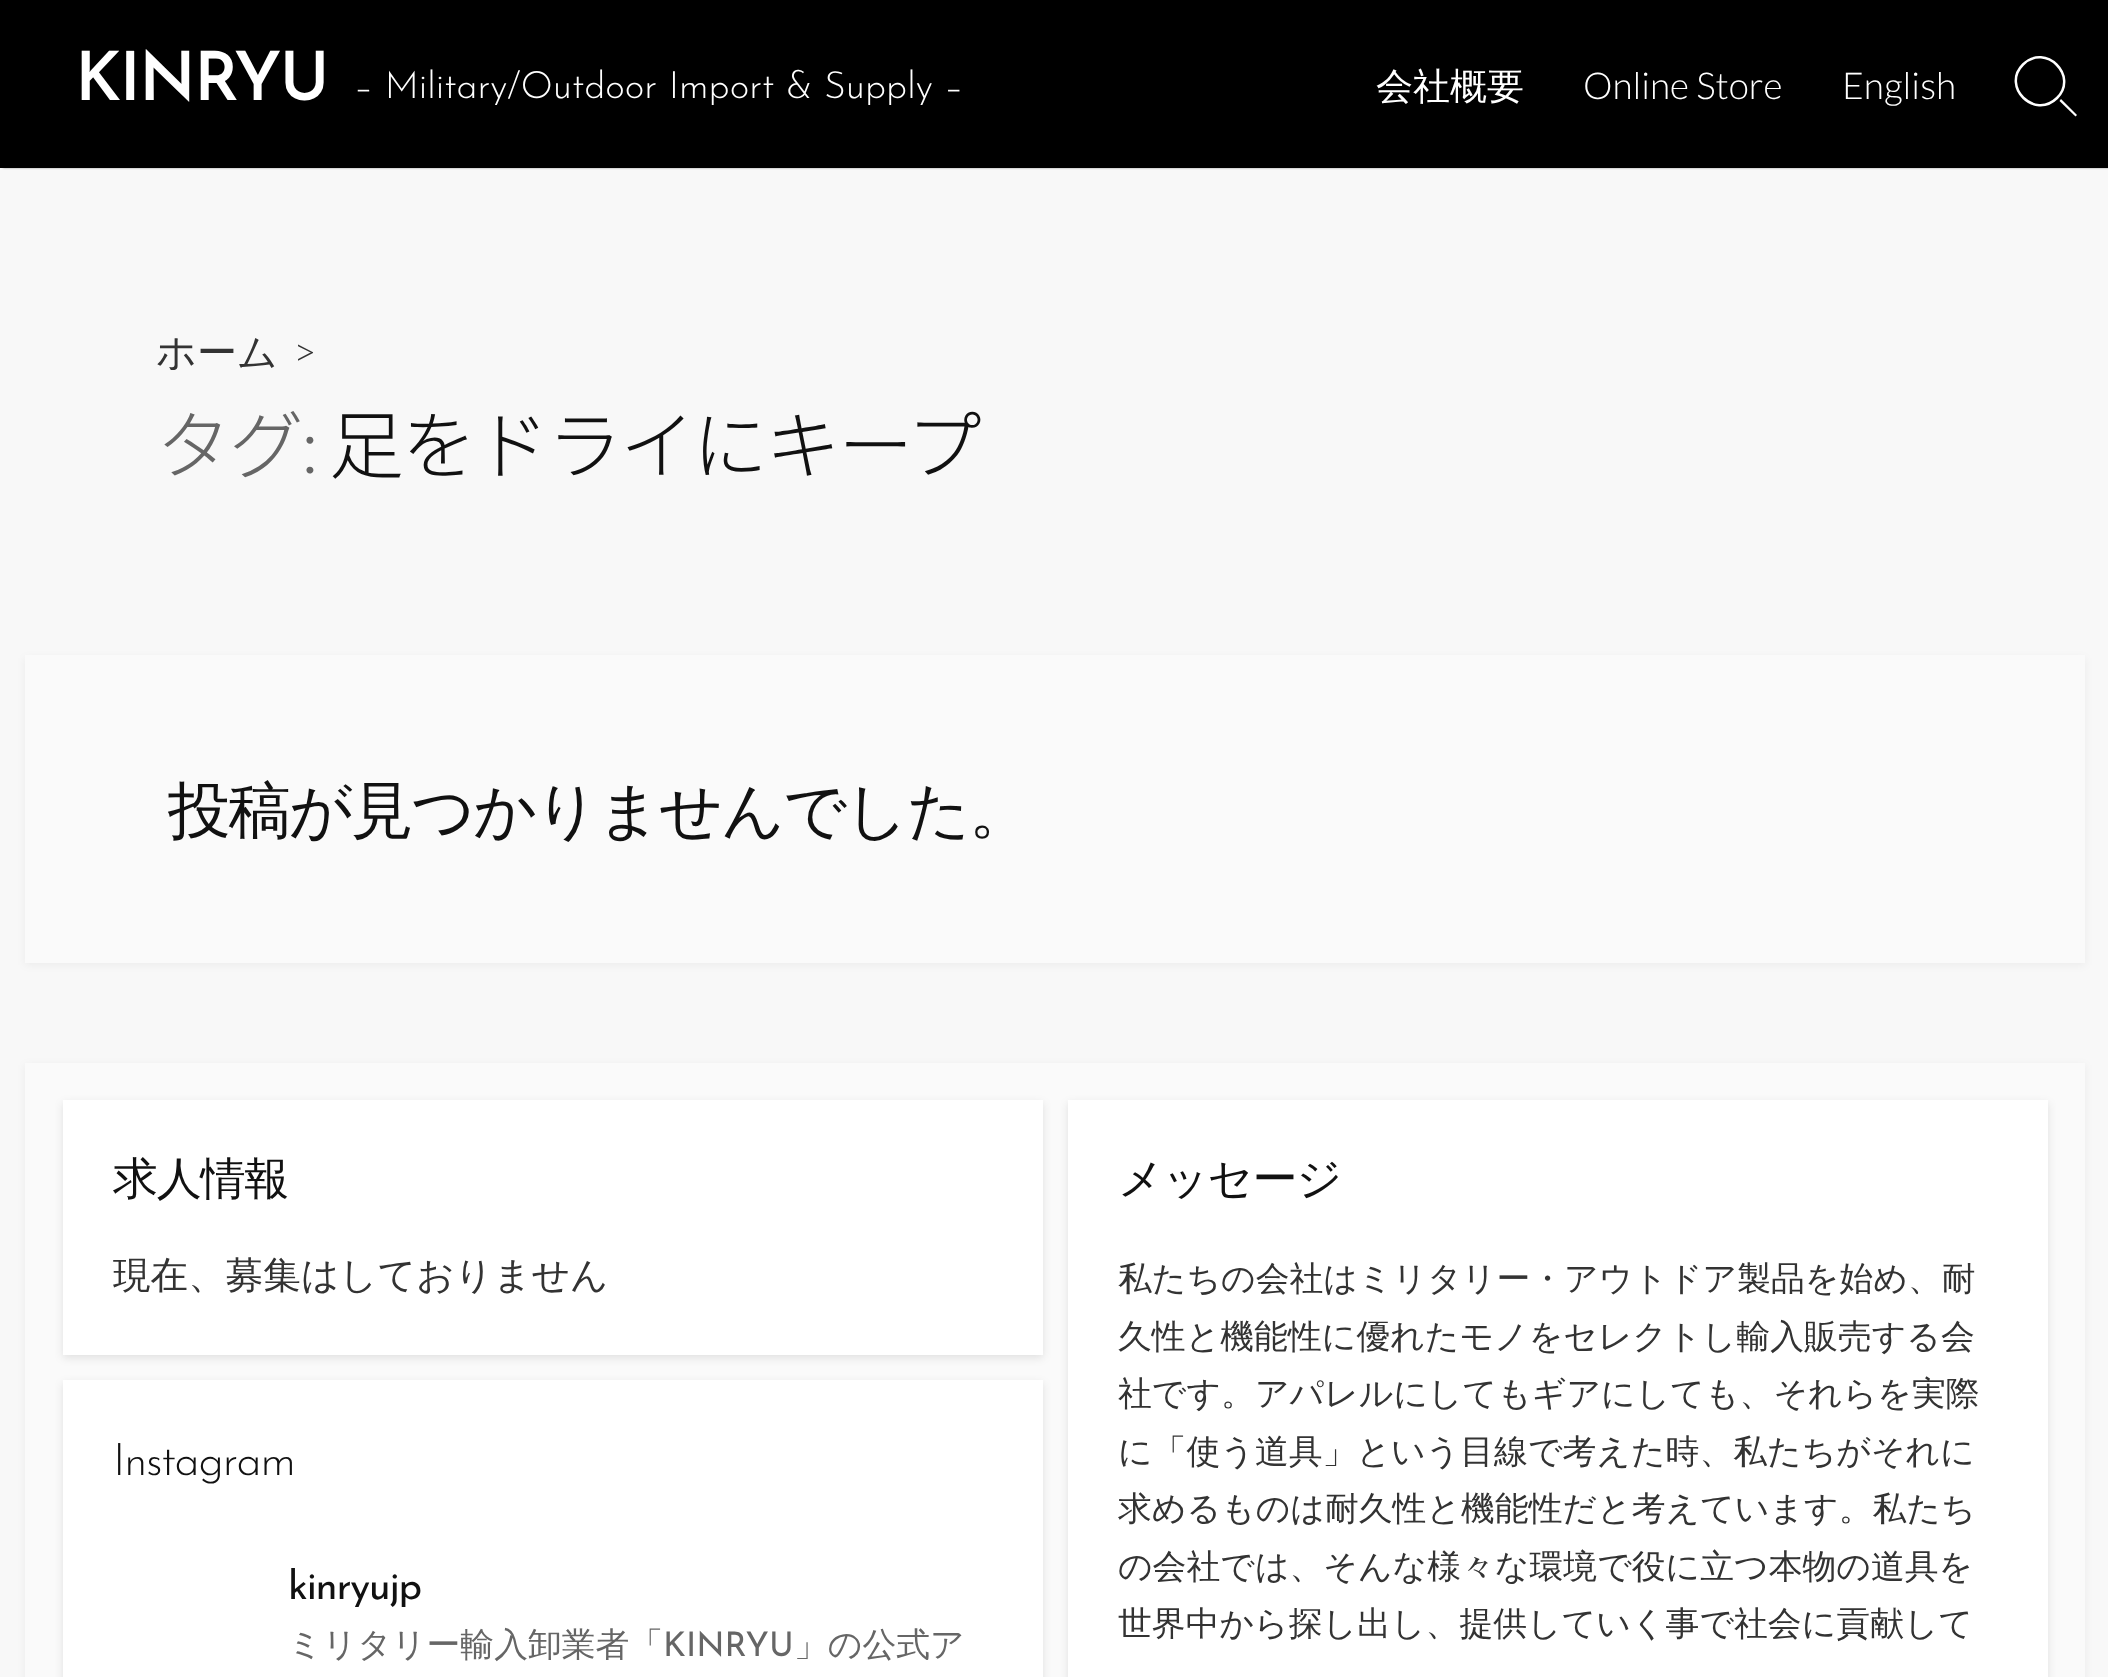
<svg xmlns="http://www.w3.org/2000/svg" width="2108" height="1677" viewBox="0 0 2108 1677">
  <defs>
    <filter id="blur1" x="-50%" y="-200%" width="200%" height="500%"><feGaussianBlur stdDeviation="1"/></filter>
    <filter id="blur2" x="-50%" y="-200%" width="200%" height="500%"><feGaussianBlur stdDeviation="4"/></filter>
  </defs>
  <rect width="100%" height="100%" fill="#f8f8f8"/>
  <rect x="3" y="0" width="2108" height="168" fill="#000000" fill-opacity="0.4" filter="url(#blur1)"/>
  <rect x="0" y="0" width="2108" height="168" fill="#000000"/>
  <text x="75" y="100" font-family="Josefin Sans" font-size="67.5" font-weight="600" letter-spacing="-2" fill="#ffffff">KINRYU</text>
  <text x="354" y="98" font-family="Josefin Sans" font-size="37.6" font-weight="300" fill="#ffffff">– Military/Outdoor Import &amp; Supply –</text>
  <text x="1376" y="99" font-family="WenQuanYi Zen Hei" font-size="37" font-weight="500" fill="#ffffff">会社概要</text>
  <text x="1583" y="99" font-family="Lato" font-size="37" font-weight="300" fill="#ffffff">Online Store</text>
  <text x="1842" y="99" font-family="Lato" font-size="37" font-weight="300" fill="#ffffff">English</text>
  <path d="M2023 64.5C2045.5 42.5 2079 76 2057 98C2034.5 120 2001 86.5 2023 64.5Z" fill="none" stroke="#ffffff" stroke-width="2.5"/>
  <path d="M2059.5 101L2061 99L2077 115L2075.5 116.5Z" fill="#ffffff"/>
  <text x="156" y="366" font-family="WenQuanYi Zen Hei" font-size="40" font-weight="500" fill="#333333">ホーム</text>
  <text x="293" y="366" font-family="Lato" font-size="40" font-weight="300" fill="#333333">&gt;</text>
  <text x="156" y="473" font-family="Noto Sans CJK JP" font-size="75" font-weight="300" letter-spacing="-2.25" fill="#666666">タグ</text>
  <text x="301" y="473" font-family="Lato" font-size="75" font-weight="300" letter-spacing="-2.25" fill="#666666">:</text>
  <text x="329" y="473" font-family="Noto Sans CJK JP" font-size="75" font-weight="300" letter-spacing="-2.25" fill="#111111">足をドライにキープ</text>
  <rect x="25" y="658" width="2060" height="307" fill="#000000" fill-opacity="0.05" filter="url(#blur2)"/>
  <rect x="25" y="655" width="2060" height="308" fill="#fafafa"/>
  <text x="168" y="832" font-family="WenQuanYi Zen Hei" font-size="62.4" font-weight="500" letter-spacing="-1.9" fill="#111111">投稿が見つかりませんでした。</text>
  <rect x="25" y="1065" width="2060" height="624" fill="#000000" fill-opacity="0.05" filter="url(#blur2)"/>
  <rect x="25" y="1063" width="2060" height="614" fill="#fafafa"/>
  <rect x="63" y="1103" width="980" height="255" fill="#000000" fill-opacity="0.1" filter="url(#blur2)"/>
  <rect x="63" y="1100" width="980" height="255" fill="#ffffff"/>
  <text x="113" y="1194" font-family="WenQuanYi Zen Hei" font-size="45" font-weight="500" letter-spacing="-1.25" fill="#111111">求人情報</text>
  <text x="113" y="1288" font-family="WenQuanYi Zen Hei" font-size="37.6" font-weight="500" fill="#333333">現在、募集はしておりません</text>
  <rect x="1068" y="1103" width="980" height="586" fill="#000000" fill-opacity="0.1" filter="url(#blur2)"/>
  <rect x="1068" y="1100" width="980" height="577" fill="#ffffff"/>
  <text x="1118" y="1194" font-family="WenQuanYi Zen Hei" font-size="45" font-weight="500" letter-spacing="-1.25" fill="#111111">メッセージ</text>
  <text x="1118" y="1290" font-family="WenQuanYi Zen Hei" font-size="33.85" font-weight="500" fill="#333333">私たちの会社はミリタリー・アウトドア製品を始め、耐</text>
  <text x="1118" y="1348" font-family="WenQuanYi Zen Hei" font-size="33.85" font-weight="500" fill="#333333">久性と機能性に優れたモノをセレクトし輸入販売する会</text>
  <text x="1118" y="1405" font-family="WenQuanYi Zen Hei" font-size="33.85" font-weight="500" fill="#333333">社です。アパレルにしてもギアにしても、それらを実際</text>
  <text x="1118" y="1463" font-family="WenQuanYi Zen Hei" font-size="33.85" font-weight="500" fill="#333333">に「使う道具」という目線で考えた時、私たちがそれに</text>
  <text x="1118" y="1520" font-family="WenQuanYi Zen Hei" font-size="33.85" font-weight="500" fill="#333333">求めるものは耐久性と機能性だと考えています。私たち</text>
  <text x="1118" y="1578" font-family="WenQuanYi Zen Hei" font-size="33.85" font-weight="500" fill="#333333">の会社では、そんな様々な環境で役に立つ本物の道具を</text>
  <text x="1118" y="1635" font-family="WenQuanYi Zen Hei" font-size="33.85" font-weight="500" fill="#333333">世界中から探し出し、提供していく事で社会に貢献して</text>
  <rect x="63" y="1383" width="980" height="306" fill="#000000" fill-opacity="0.1" filter="url(#blur2)"/>
  <rect x="63" y="1380" width="980" height="297" fill="#ffffff"/>
  <text x="113" y="1475" font-family="Josefin Sans" font-size="45" font-weight="300" letter-spacing="-1.25" fill="#111111">Instagram</text>
  <text x="288" y="1599" font-family="Josefin Sans" font-size="40" letter-spacing="-1.25" fill="#111111">kinryujp</text>
  <text x="288" y="1656" font-family="WenQuanYi Zen Hei" font-size="33.85" font-weight="500" fill="#666666">ミリタリー輸入卸業者「</text>
  <text x="663" y="1656" font-family="Josefin Sans" font-size="33.85" fill="#666666">KINRYU</text>
  <text x="794" y="1656" font-family="WenQuanYi Zen Hei" font-size="33.85" font-weight="500" fill="#666666">」の公式ア</text>
</svg>
